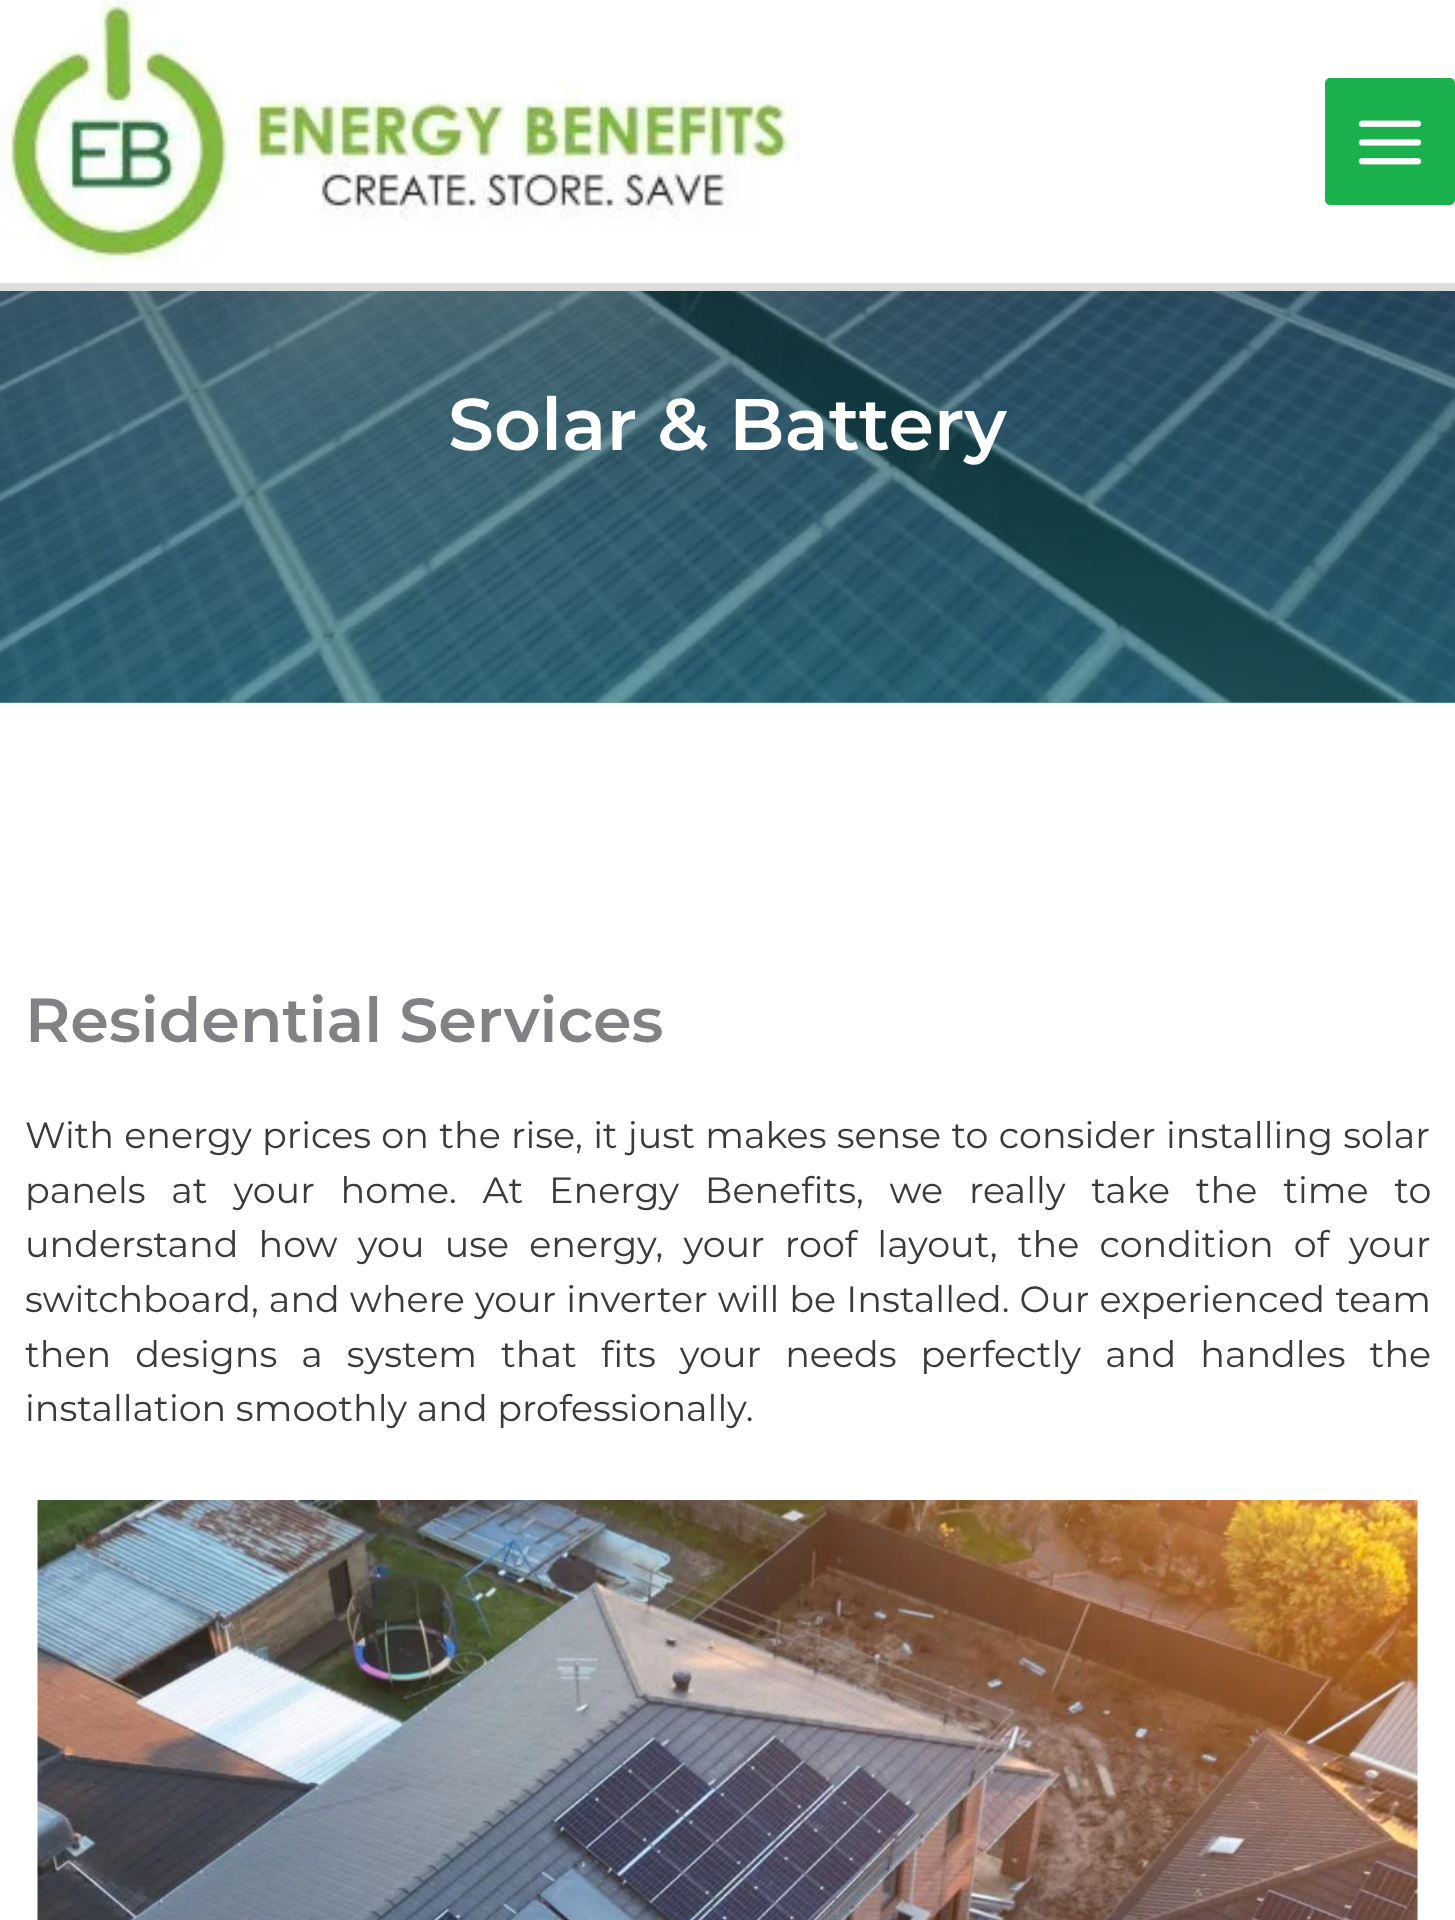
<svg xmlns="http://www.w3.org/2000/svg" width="1455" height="1920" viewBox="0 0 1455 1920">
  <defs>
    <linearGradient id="g1" gradientUnits="userSpaceOnUse" x1="728" y1="0" x2="728" y2="703"><stop offset="0" stop-color="#153243" stop-opacity="0.6"/><stop offset="1" stop-color="#1a6c7a" stop-opacity="0.6"/></linearGradient>
  </defs>
  <rect width="100%" height="100%" fill="#ffffff"/>
  <rect x="0" y="283" width="1455" height="8" fill="#dddddd"/>
  <image x="0" y="0" width="800" height="281" href="img1.png"/>
  <rect x="1325" y="78" width="130" height="127" rx="5" fill="#1bb14c"/>
  <image x="1358" y="120" width="64" height="45" href="img2.png"/>
  <image x="0" y="291" width="1455" height="412" href="img3.png"/>
  <rect x="0" y="291" width="1455" height="412" fill="url(#g1)"/>
  <text x="448" y="450" font-family="Montserrat" font-size="73" font-weight="600" fill="#ffffff">Solar &amp; Battery</text>
  <text x="25" y="1042" font-family="Montserrat" font-size="62" font-weight="600" fill="#808285">Residential Services</text>
  <text x="25" y="1148" word-spacing="0.75" font-family="Montserrat" font-size="36.5" fill="#3a3a3a">With energy prices on the rise, it just makes sense to consider installing solar</text>
  <text x="25" y="1203" word-spacing="16.25" font-family="Montserrat" font-size="36.5" fill="#3a3a3a">panels at your home. At Energy Benefits, we really take the time to</text>
  <text x="25" y="1257" word-spacing="10.6" font-family="Montserrat" font-size="36.5" fill="#3a3a3a">understand how you use energy, your roof layout, the condition of your</text>
  <text x="25" y="1312" word-spacing="0.5" font-family="Montserrat" font-size="36.5" fill="#3a3a3a">switchboard, and where your inverter will be Installed. Our experienced team</text>
  <text x="25" y="1367" word-spacing="14.5" font-family="Montserrat" font-size="36.5" fill="#3a3a3a">then designs a system that fits your needs perfectly and handles the</text>
  <text x="25" y="1421" font-family="Montserrat" font-size="36.5" fill="#3a3a3a">installation smoothly and professionally.</text>
  <image x="37" y="1500" width="1381" height="420" href="img4.png"/>
</svg>
